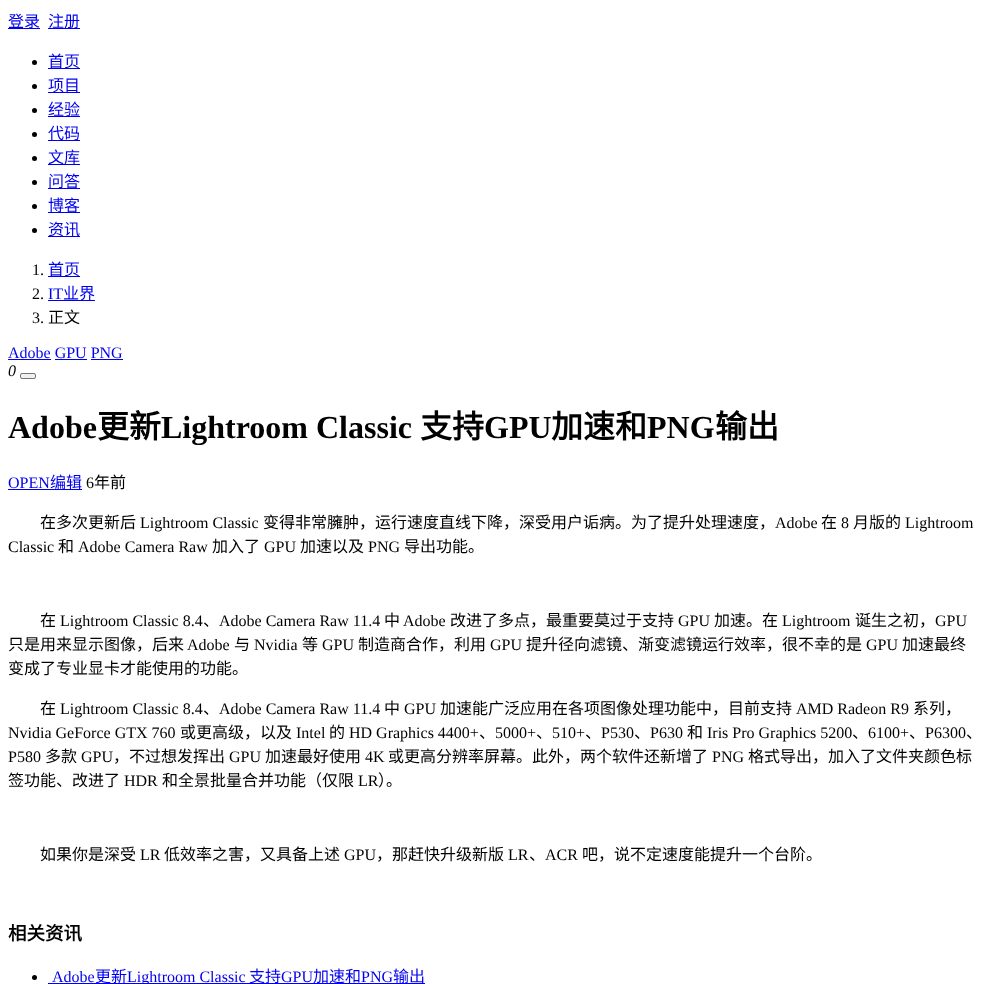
<svg xmlns="http://www.w3.org/2000/svg" width="990" height="984" viewBox="0 0 990 984">
  <rect width="100%" height="100%" fill="#ffffff"/>
  <rect x="8" y="28" width="32" height="1" fill="#0000ee"/>
  <text x="8" y="27" font-family="Noto Sans CJK SC" font-size="16" fill="#0000ee">登录</text>
  <rect x="48" y="28" width="32" height="1" fill="#0000ee"/>
  <text x="48" y="27" font-family="Noto Sans CJK SC" font-size="16" fill="#0000ee">注册</text>
  <circle cx="34.5" cy="62.5" r="2.5" fill="#000000"/>
  <rect x="48" y="68" width="32" height="1" fill="#0000ee"/>
  <text x="48" y="67" font-family="Noto Sans CJK SC" font-size="16" fill="#0000ee">首页</text>
  <circle cx="34.5" cy="86.5" r="2.5" fill="#000000"/>
  <rect x="48" y="92" width="32" height="1" fill="#0000ee"/>
  <text x="48" y="91" font-family="Noto Sans CJK SC" font-size="16" fill="#0000ee">项目</text>
  <circle cx="34.5" cy="110.5" r="2.5" fill="#000000"/>
  <rect x="48" y="116" width="32" height="1" fill="#0000ee"/>
  <text x="48" y="115" font-family="Noto Sans CJK SC" font-size="16" fill="#0000ee">经验</text>
  <circle cx="34.5" cy="134.5" r="2.5" fill="#000000"/>
  <rect x="48" y="140" width="32" height="1" fill="#0000ee"/>
  <text x="48" y="139" font-family="Noto Sans CJK SC" font-size="16" fill="#0000ee">代码</text>
  <circle cx="34.5" cy="158.5" r="2.5" fill="#000000"/>
  <rect x="48" y="164" width="32" height="1" fill="#0000ee"/>
  <text x="48" y="163" font-family="Noto Sans CJK SC" font-size="16" fill="#0000ee">文库</text>
  <circle cx="34.5" cy="182.5" r="2.5" fill="#000000"/>
  <rect x="48" y="188" width="32" height="1" fill="#0000ee"/>
  <text x="48" y="187" font-family="Noto Sans CJK SC" font-size="16" fill="#0000ee">问答</text>
  <circle cx="34.5" cy="206.5" r="2.5" fill="#000000"/>
  <rect x="48" y="212" width="32" height="1" fill="#0000ee"/>
  <text x="48" y="211" font-family="Noto Sans CJK SC" font-size="16" fill="#0000ee">博客</text>
  <circle cx="34.5" cy="230.5" r="2.5" fill="#000000"/>
  <rect x="48" y="236" width="32" height="1" fill="#0000ee"/>
  <text x="48" y="235" font-family="Noto Sans CJK SC" font-size="16" fill="#0000ee">资讯</text>
  <text x="32" y="275" font-family="Liberation Serif" font-size="16" fill="#000000">1.</text>
  <rect x="48" y="276" width="32" height="1" fill="#0000ee"/>
  <text x="48" y="275" font-family="Noto Sans CJK SC" font-size="16" fill="#0000ee">首页</text>
  <text x="32" y="299" font-family="Liberation Serif" font-size="16" fill="#000000">2.</text>
  <text x="48" y="299" font-family="Liberation Serif" font-size="16" fill="#0000ee">IT</text>
  <rect x="48" y="300" width="47" height="1" fill="#0000ee"/>
  <text x="63" y="299" font-family="Noto Sans CJK SC" font-size="16" fill="#0000ee">业界</text>
  <text x="32" y="323" font-family="Liberation Serif" font-size="16" fill="#000000">3.</text>
  <text x="48" y="323" font-family="Noto Sans CJK SC" font-size="16" fill="#000000">正文</text>
  <text x="8" y="358" font-family="Liberation Serif" font-size="16" fill="#0000ee">Adobe GPU PNG</text>
  <rect x="8" y="359" width="43" height="1" fill="#0000ee"/>
  <rect x="55" y="359" width="32" height="1" fill="#0000ee"/>
  <rect x="91" y="359" width="32" height="1" fill="#0000ee"/>
  <text x="8" y="376" font-family="Liberation Serif" font-size="16" font-style="italic" fill="#000000">0</text>
  <rect x="20.5" y="373.5" width="15" height="5" rx="1.5" fill="#efefef" stroke="#767676"/>
  <text x="8" y="438" font-family="Liberation Serif" font-size="32" font-weight="bold" fill="#000000">Adobe</text>
  <text x="97" y="438" font-family="Noto Sans CJK SC" font-size="32" font-weight="bold" fill="#000000">更新</text>
  <text x="161" y="438" font-family="Liberation Serif" font-size="32" font-weight="bold" fill="#000000">Lightroom Classic</text>
  <text x="420" y="438" font-family="Noto Sans CJK SC" font-size="32" font-weight="bold" fill="#000000">支持</text>
  <text x="484" y="438" font-family="Liberation Serif" font-size="32" font-weight="bold" fill="#000000">GPU</text>
  <text x="551" y="438" font-family="Noto Sans CJK SC" font-size="32" font-weight="bold" fill="#000000">加速和</text>
  <text x="647" y="438" font-family="Liberation Serif" font-size="32" font-weight="bold" fill="#000000">PNG</text>
  <text x="715" y="438" font-family="Noto Sans CJK SC" font-size="32" font-weight="bold" fill="#000000">输出</text>
  <text x="8" y="488" font-family="Liberation Serif" font-size="16" fill="#0000ee">OPEN</text>
  <rect x="8" y="489" width="74" height="1" fill="#0000ee"/>
  <text x="50" y="488" font-family="Noto Sans CJK SC" font-size="16" fill="#0000ee">编辑</text>
  <text x="86" y="488" font-family="Liberation Serif" font-size="16" fill="#000000">6</text>
  <text x="94" y="488" font-family="Noto Sans CJK SC" font-size="16" fill="#000000">年前</text>
  <text x="40" y="528" font-family="Noto Sans CJK SC" font-size="16" fill="#000000">在多次更新后</text>
  <text x="140" y="528" font-family="Liberation Serif" font-size="16" fill="#000000">Lightroom Classic</text>
  <text x="263" y="528" font-family="Noto Sans CJK SC" font-size="16" fill="#000000">变得非常臃肿，运行速度直线下降，深受用户诟病。为了提升处理速度，</text>
  <text x="775" y="528" font-family="Liberation Serif" font-size="16" fill="#000000">Adobe</text>
  <text x="821" y="528" font-family="Noto Sans CJK SC" font-size="16" fill="#000000">在</text>
  <text x="841" y="528" font-family="Liberation Serif" font-size="16" fill="#000000">8</text>
  <text x="853" y="528" font-family="Noto Sans CJK SC" font-size="16" fill="#000000">月版的</text>
  <text x="905" y="528" font-family="Liberation Serif" font-size="16" fill="#000000">Lightroom</text>
  <text x="8" y="552" font-family="Liberation Serif" font-size="16" fill="#000000">Classic</text>
  <text x="58" y="552" font-family="Noto Sans CJK SC" font-size="16" fill="#000000">和</text>
  <text x="78" y="552" font-family="Liberation Serif" font-size="16" fill="#000000">Adobe Camera Raw</text>
  <text x="212" y="552" font-family="Noto Sans CJK SC" font-size="16" fill="#000000">加入了</text>
  <text x="264" y="552" font-family="Liberation Serif" font-size="16" fill="#000000">GPU</text>
  <text x="300" y="552" font-family="Noto Sans CJK SC" font-size="16" fill="#000000">加速以及</text>
  <text x="368" y="552" font-family="Liberation Serif" font-size="16" fill="#000000">PNG</text>
  <text x="404" y="552" font-family="Noto Sans CJK SC" font-size="16" fill="#000000">导出功能。</text>
  <text x="40" y="626" font-family="Noto Sans CJK SC" font-size="16" fill="#000000">在</text>
  <text x="60" y="626" font-family="Liberation Serif" font-size="16" fill="#000000">Lightroom Classic 8.4</text>
  <text x="203" y="626" font-family="Noto Sans CJK SC" font-size="16" fill="#000000">、</text>
  <text x="219" y="626" font-family="Liberation Serif" font-size="16" fill="#000000">Adobe Camera Raw 11.4</text>
  <text x="384" y="626" font-family="Noto Sans CJK SC" font-size="16" fill="#000000">中</text>
  <text x="403" y="626" font-family="Liberation Serif" font-size="16" fill="#000000">Adobe</text>
  <text x="450" y="626" font-family="Noto Sans CJK SC" font-size="16" fill="#000000">改进了多点，最重要莫过于支持</text>
  <text x="678" y="626" font-family="Liberation Serif" font-size="16" fill="#000000">GPU</text>
  <text x="714" y="626" font-family="Noto Sans CJK SC" font-size="16" fill="#000000">加速。在</text>
  <text x="782" y="626" font-family="Liberation Serif" font-size="16" fill="#000000">Lightroom</text>
  <text x="855" y="626" font-family="Noto Sans CJK SC" font-size="16" fill="#000000">诞生之初，</text>
  <text x="935" y="626" font-family="Liberation Serif" font-size="16" fill="#000000">GPU</text>
  <text x="8" y="650" font-family="Noto Sans CJK SC" font-size="16" fill="#000000">只是用来显示图像，后来</text>
  <text x="187" y="650" font-family="Liberation Serif" font-size="16" fill="#000000">Adobe</text>
  <text x="234" y="650" font-family="Noto Sans CJK SC" font-size="16" fill="#000000">与</text>
  <text x="254" y="650" font-family="Liberation Serif" font-size="16" fill="#000000">Nvidia</text>
  <text x="302" y="650" font-family="Noto Sans CJK SC" font-size="16" fill="#000000">等</text>
  <text x="322" y="650" font-family="Liberation Serif" font-size="16" fill="#000000">GPU</text>
  <text x="358" y="650" font-family="Noto Sans CJK SC" font-size="16" fill="#000000">制造商合作，利用</text>
  <text x="490" y="650" font-family="Liberation Serif" font-size="16" fill="#000000">GPU</text>
  <text x="526" y="650" font-family="Noto Sans CJK SC" font-size="16" fill="#000000">提升径向滤镜、渐变滤镜运行效率，很不幸的是</text>
  <text x="866" y="650" font-family="Liberation Serif" font-size="16" fill="#000000">GPU</text>
  <text x="902" y="650" font-family="Noto Sans CJK SC" font-size="16" fill="#000000">加速最终</text>
  <text x="8" y="674" font-family="Noto Sans CJK SC" font-size="16" fill="#000000">变成了专业显卡才能使用的功能。</text>
  <text x="40" y="714" font-family="Noto Sans CJK SC" font-size="16" fill="#000000">在</text>
  <text x="60" y="714" font-family="Liberation Serif" font-size="16" fill="#000000">Lightroom Classic 8.4</text>
  <text x="203" y="714" font-family="Noto Sans CJK SC" font-size="16" fill="#000000">、</text>
  <text x="219" y="714" font-family="Liberation Serif" font-size="16" fill="#000000">Adobe Camera Raw 11.4</text>
  <text x="384" y="714" font-family="Noto Sans CJK SC" font-size="16" fill="#000000">中</text>
  <text x="404" y="714" font-family="Liberation Serif" font-size="16" fill="#000000">GPU</text>
  <text x="440" y="714" font-family="Noto Sans CJK SC" font-size="16" fill="#000000">加速能广泛应用在各项图像处理功能中，目前支持</text>
  <text x="796" y="714" font-family="Liberation Serif" font-size="16" fill="#000000">AMD Radeon R9</text>
  <text x="913" y="714" font-family="Noto Sans CJK SC" font-size="16" fill="#000000">系列，</text>
  <text x="8" y="738" font-family="Liberation Serif" font-size="16" fill="#000000">Nvidia GeForce GTX 760</text>
  <text x="180" y="738" font-family="Noto Sans CJK SC" font-size="16" fill="#000000">或更高级，以及</text>
  <text x="296" y="738" font-family="Liberation Serif" font-size="16" fill="#000000">Intel</text>
  <text x="329" y="738" font-family="Noto Sans CJK SC" font-size="16" fill="#000000">的</text>
  <text x="349" y="738" font-family="Liberation Serif" font-size="16" fill="#000000">HD Graphics 4400+</text>
  <text x="479" y="738" font-family="Noto Sans CJK SC" font-size="16" fill="#000000">、</text>
  <text x="495" y="738" font-family="Liberation Serif" font-size="16" fill="#000000">5000+</text>
  <text x="536" y="738" font-family="Noto Sans CJK SC" font-size="16" fill="#000000">、</text>
  <text x="552" y="738" font-family="Liberation Serif" font-size="16" fill="#000000">510+</text>
  <text x="585" y="738" font-family="Noto Sans CJK SC" font-size="16" fill="#000000">、</text>
  <text x="601" y="738" font-family="Liberation Serif" font-size="16" fill="#000000">P530</text>
  <text x="634" y="738" font-family="Noto Sans CJK SC" font-size="16" fill="#000000">、</text>
  <text x="650" y="738" font-family="Liberation Serif" font-size="16" fill="#000000">P630</text>
  <text x="687" y="738" font-family="Noto Sans CJK SC" font-size="16" fill="#000000">和</text>
  <text x="707" y="738" font-family="Liberation Serif" font-size="16" fill="#000000">Iris Pro Graphics 5200</text>
  <text x="852" y="738" font-family="Noto Sans CJK SC" font-size="16" fill="#000000">、</text>
  <text x="868" y="738" font-family="Liberation Serif" font-size="16" fill="#000000">6100+</text>
  <text x="909" y="738" font-family="Noto Sans CJK SC" font-size="16" fill="#000000">、</text>
  <text x="925" y="738" font-family="Liberation Serif" font-size="16" fill="#000000">P6300</text>
  <text x="966" y="738" font-family="Noto Sans CJK SC" font-size="16" fill="#000000">、</text>
  <text x="8" y="762" font-family="Liberation Serif" font-size="16" fill="#000000">P580</text>
  <text x="45" y="762" font-family="Noto Sans CJK SC" font-size="16" fill="#000000">多款</text>
  <text x="81" y="762" font-family="Liberation Serif" font-size="16" fill="#000000">GPU</text>
  <text x="113" y="762" font-family="Noto Sans CJK SC" font-size="16" fill="#000000">，不过想发挥出</text>
  <text x="229" y="762" font-family="Liberation Serif" font-size="16" fill="#000000">GPU</text>
  <text x="265" y="762" font-family="Noto Sans CJK SC" font-size="16" fill="#000000">加速最好使用</text>
  <text x="365" y="762" font-family="Liberation Serif" font-size="16" fill="#000000">4K</text>
  <text x="388" y="762" font-family="Noto Sans CJK SC" font-size="16" fill="#000000">或更高分辨率屏幕。此外，两个软件还新增了</text>
  <text x="712" y="762" font-family="Liberation Serif" font-size="16" fill="#000000">PNG</text>
  <text x="748" y="762" font-family="Noto Sans CJK SC" font-size="16" fill="#000000">格式导出，加入了文件夹颜色标</text>
  <text x="8" y="786" font-family="Noto Sans CJK SC" font-size="16" fill="#000000">签功能、改进了</text>
  <text x="124" y="786" font-family="Liberation Serif" font-size="16" fill="#000000">HDR</text>
  <text x="162" y="786" font-family="Noto Sans CJK SC" font-size="16" fill="#000000">和全景批量合并功能（仅限</text>
  <text x="358" y="786" font-family="Liberation Serif" font-size="16" fill="#000000">LR</text>
  <text x="378" y="786" font-family="Noto Sans CJK SC" font-size="16" fill="#000000">）。</text>
  <text x="40" y="860" font-family="Noto Sans CJK SC" font-size="16" fill="#000000">如果你是深受</text>
  <text x="140" y="860" font-family="Liberation Serif" font-size="16" fill="#000000">LR</text>
  <text x="164" y="860" font-family="Noto Sans CJK SC" font-size="16" fill="#000000">低效率之害，又具备上述</text>
  <text x="344" y="860" font-family="Liberation Serif" font-size="16" fill="#000000">GPU</text>
  <text x="376" y="860" font-family="Noto Sans CJK SC" font-size="16" fill="#000000">，那赶快升级新版</text>
  <text x="508" y="860" font-family="Liberation Serif" font-size="16" fill="#000000">LR</text>
  <text x="529" y="860" font-family="Noto Sans CJK SC" font-size="16" fill="#000000">、</text>
  <text x="545" y="860" font-family="Liberation Serif" font-size="16" fill="#000000">ACR</text>
  <text x="582" y="860" font-family="Noto Sans CJK SC" font-size="16" fill="#000000">吧，说不定速度能提升一个台阶。</text>
  <text x="8" y="940" font-family="Noto Sans CJK SC" font-size="18.5" font-weight="bold" fill="#000000">相关资讯</text>
  <circle cx="34.5" cy="977.5" r="2.5" fill="#000000"/>
  <text x="52" y="982" font-family="Liberation Serif" font-size="16" fill="#0000ee">Adobe</text>
  <rect x="48" y="983" width="377" height="1" fill="#0000ee"/>
  <text x="95" y="982" font-family="Noto Sans CJK SC" font-size="16" fill="#0000ee">更新</text>
  <text x="127" y="982" font-family="Liberation Serif" font-size="16" fill="#0000ee">Lightroom Classic</text>
  <text x="249" y="982" font-family="Noto Sans CJK SC" font-size="16" fill="#0000ee">支持</text>
  <text x="281" y="982" font-family="Liberation Serif" font-size="16" fill="#0000ee">GPU</text>
  <text x="313" y="982" font-family="Noto Sans CJK SC" font-size="16" fill="#0000ee">加速和</text>
  <text x="361" y="982" font-family="Liberation Serif" font-size="16" fill="#0000ee">PNG</text>
  <text x="393" y="982" font-family="Noto Sans CJK SC" font-size="16" fill="#0000ee">输出</text>
</svg>
